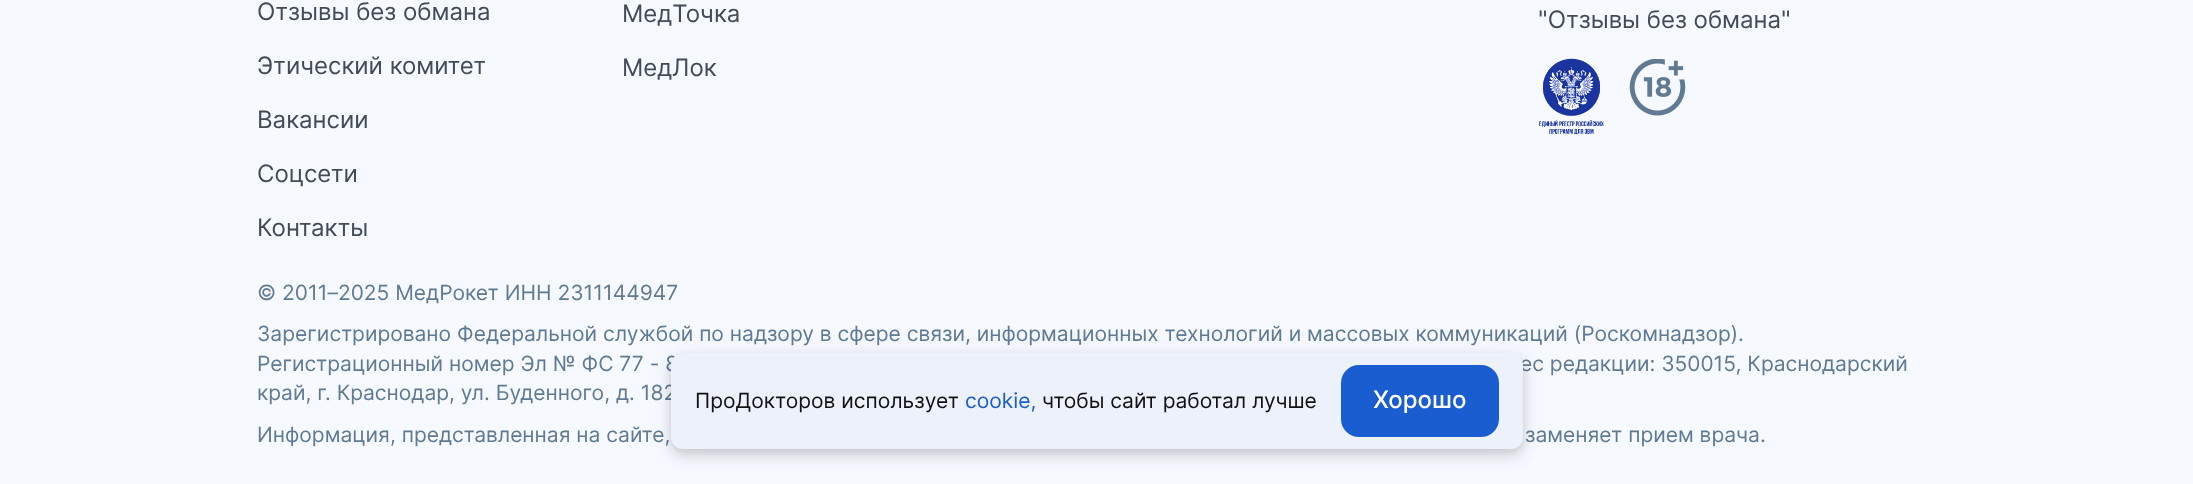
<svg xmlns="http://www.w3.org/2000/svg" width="2193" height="484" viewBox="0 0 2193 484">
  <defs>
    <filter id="blur1" x="-50%" y="-200%" width="200%" height="500%"><feGaussianBlur stdDeviation="4"/></filter>
    <filter id="blur2" x="-50%" y="-200%" width="200%" height="500%"><feGaussianBlur stdDeviation="13.5"/></filter>
    <filter id="blur3" x="-50%" y="-200%" width="200%" height="500%"><feGaussianBlur stdDeviation="7.5"/></filter>
  </defs>
  <rect width="100%" height="100%" fill="#f6f9ff"/>
  <text x="257" y="20" font-family="Inter" font-size="24" fill="#424b58">Отзывы без обмана</text>
  <text x="257" y="74" font-family="Inter" font-size="24" fill="#424b58">Этический комитет</text>
  <text x="257" y="128" font-family="Inter" font-size="24" fill="#424b58">Вакансии</text>
  <text x="257" y="182" font-family="Inter" font-size="24" fill="#424b58">Соцсети</text>
  <text x="257" y="236" font-family="Inter" font-size="24" fill="#424b58">Контакты</text>
  <text x="622" y="22" font-family="Inter" font-size="24" fill="#424b58">МедТочка</text>
  <text x="622" y="76" font-family="Inter" font-size="24" fill="#424b58">МедЛок</text>
  <text x="1538" y="28" font-family="Inter" font-size="24" fill="#424b58">"Отзывы без обмана"</text>
  <image x="1539" y="58" width="65" height="77" href="img1.png"/>
  <image x="1629" y="59" width="57" height="57" href="img2.png"/>
  <text x="257" y="300" font-family="Inter" font-size="21" fill="#607a93">© 2011–2025 МедРокет ИНН 2311144947</text>
  <text x="257" y="341" font-family="Inter" font-size="21" fill="#607a93">Зарегистрировано Федеральной службой по надзору в сфере связи, информационных технологий и массовых коммуникаций (Роскомнадзор).</text>
  <text x="257" y="371" font-family="Inter" font-size="21" fill="#607a93">Регистрационный номер Эл № ФС 77 - 8</text>
  <text x="1520" y="371" font-family="Inter" font-size="21" fill="#607a93">ес редакции: 350015, Краснодарский</text>
  <text x="257" y="400" font-family="Inter" font-size="21" fill="#607a93">край, г. Краснодар, ул. Буденного, д. 182</text>
  <text x="257" y="442" font-family="Inter" font-size="21" fill="#607a93">Информация, представленная на сайте,</text>
  <text x="1525" y="442" font-family="Inter" font-size="21" fill="#607a93">заменяет прием врача.</text>
  <rect x="671" y="357" width="852" height="96" rx="12" fill="#000000" fill-opacity="0.1" filter="url(#blur1)"/>
  <rect x="671" y="354" width="852" height="96" rx="12" fill="#000000" fill-opacity="0.06" filter="url(#blur2)"/>
  <rect x="671" y="362" width="852" height="96" rx="12" fill="#000000" fill-opacity="0.07" filter="url(#blur3)"/>
  <rect x="671" y="353" width="852" height="96" rx="12" fill="#ecf1fb"/>
  <text x="695" y="408" font-family="Inter" font-size="21" fill="#111111">ПроДокторов использует</text>
  <text x="965" y="408" font-family="Inter" font-size="21" fill="#1a5dd0">cookie,</text>
  <text x="1042" y="408" font-family="Inter" font-size="21" fill="#111111">чтобы сайт работал лучше</text>
  <rect x="1341" y="365" width="158" height="72" rx="18" fill="#1a5dd0"/>
  <text x="1373" y="408" font-family="Inter" font-size="24" font-weight="500" fill="#ffffff">Хорошо</text>
</svg>
